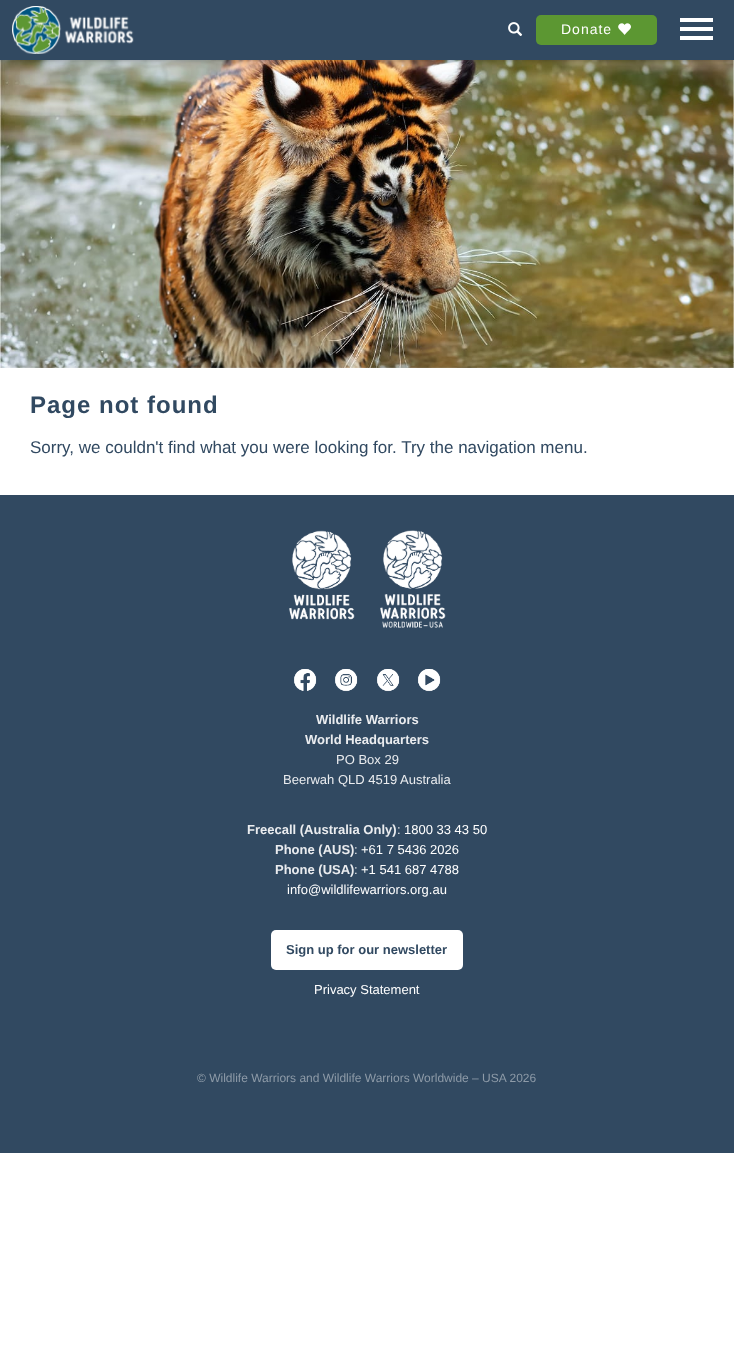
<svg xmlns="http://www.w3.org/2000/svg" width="734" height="1347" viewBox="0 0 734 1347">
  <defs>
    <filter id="blur1" x="-50%" y="-200%" width="200%" height="500%"><feGaussianBlur stdDeviation="2.5"/></filter>
  </defs>
  <rect width="100%" height="100%" fill="#ffffff"/>
  <image x="0" y="60" width="734" height="308" href="img4.png"/>
  <rect x="-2" y="0" width="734" height="60" fill="#000000" fill-opacity="0.35" filter="url(#blur1)"/>
  <rect x="0" y="0" width="734" height="60" fill="#314961"/>
  <image x="12" y="6" width="122" height="48" href="img1.png"/>
  <image x="508" y="22" width="15" height="14" href="img2.png"/>
  <rect x="536" y="15" width="121" height="30" rx="5" fill="#5c9732"/>
  <text x="561" y="34" font-family="Liberation Sans" font-size="14" letter-spacing="1" fill="#ffffff">Donate</text>
  <image x="618" y="23" width="13" height="12" href="img3.png"/>
  <rect x="680" y="18" width="33" height="4" fill="#ffffff"/>
  <rect x="680" y="27" width="33" height="4" fill="#ffffff"/>
  <rect x="680" y="36" width="33" height="4" fill="#ffffff"/>
  <text x="30" y="413" font-family="Liberation Sans" font-size="24" font-weight="bold" letter-spacing="1" fill="#314961">Page not found</text>
  <text x="30" y="453" font-family="Liberation Sans" font-size="17" fill="#314961">Sorry, we couldn't find what you were looking for. Try the navigation menu.</text>
  <rect x="0" y="495" width="734" height="658" fill="#314961"/>
  <image x="289" y="530" width="66" height="90" href="img5.png"/>
  <image x="380" y="530" width="66" height="98" href="img6.png"/>
  <image x="294" y="669" width="23" height="22" href="img7.png"/>
  <image x="335" y="669" width="23" height="23" href="img8.png"/>
  <image x="377" y="669" width="23" height="23" href="img9.png"/>
  <image x="418" y="669" width="23" height="23" href="img10.png"/>
  <text x="316" y="724" font-family="Liberation Sans" font-size="13" font-weight="bold" fill="#eaecef">Wildlife Warriors</text>
  <text x="305" y="744" font-family="Liberation Sans" font-size="13" font-weight="bold" fill="#eaecef">World Headquarters</text>
  <text x="336" y="764" font-family="Liberation Sans" font-size="13" fill="#eaecef">PO Box 29</text>
  <text x="283" y="784" font-family="Liberation Sans" font-size="13" fill="#eaecef">Beerwah QLD 4519 Australia</text>
  <text x="247" y="834" font-family="Liberation Sans" font-size="13" font-weight="bold" fill="#eaecef">Freecall (Australia Only)</text>
  <text x="397" y="834" font-family="Liberation Sans" font-size="13" fill="#eaecef">:</text>
  <text x="404" y="834" font-family="Liberation Sans" font-size="13" fill="#ffffff">1800 33 43 50</text>
  <text x="275" y="854" font-family="Liberation Sans" font-size="13" font-weight="bold" fill="#eaecef">Phone (AUS)</text>
  <text x="354" y="854" font-family="Liberation Sans" font-size="13" fill="#eaecef">:</text>
  <text x="361" y="854" font-family="Liberation Sans" font-size="13" fill="#ffffff">+61 7 5436 2026</text>
  <text x="275" y="874" font-family="Liberation Sans" font-size="13" font-weight="bold" fill="#eaecef">Phone (USA)</text>
  <text x="354" y="874" font-family="Liberation Sans" font-size="13" fill="#eaecef">:</text>
  <text x="361" y="874" font-family="Liberation Sans" font-size="13" fill="#ffffff">+1 541 687 4788</text>
  <text x="287" y="894" font-family="Liberation Sans" font-size="13" fill="#ffffff">info@wildlifewarriors.org.au</text>
  <rect x="271" y="930" width="192" height="40" rx="5" fill="#ffffff"/>
  <text x="286" y="954" font-family="Liberation Sans" font-size="13" font-weight="bold" fill="#314961">Sign up for our newsletter</text>
  <text x="314" y="994" font-family="Liberation Sans" font-size="13" fill="#ffffff">Privacy Statement</text>
  <text x="197" y="1082" font-family="Liberation Sans" font-size="12" fill="#8e9ba8">© Wildlife Warriors and Wildlife Warriors Worldwide – USA 2026</text>
</svg>
